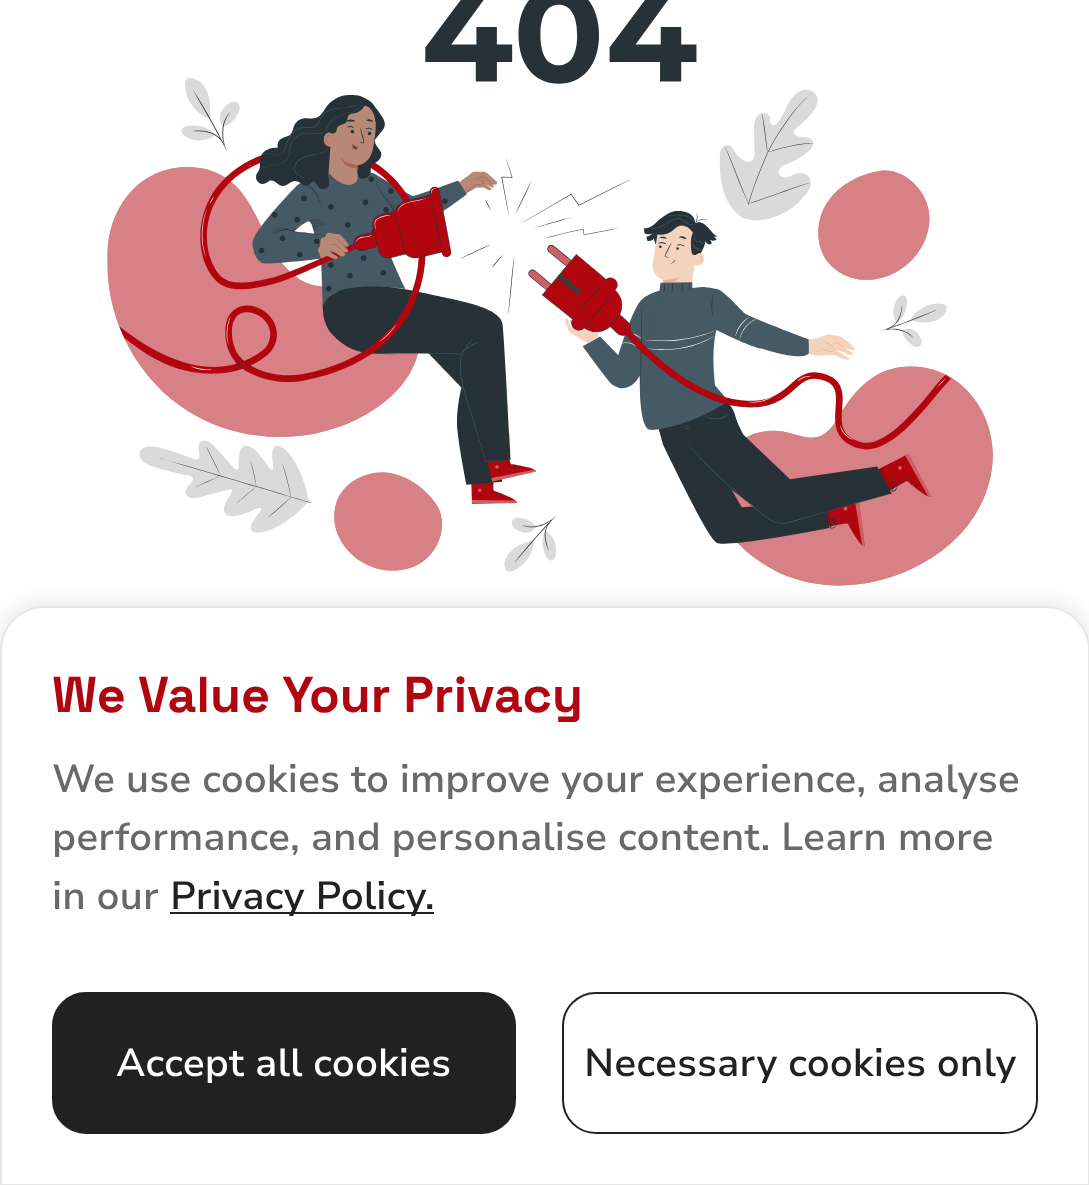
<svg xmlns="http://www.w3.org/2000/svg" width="1089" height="1185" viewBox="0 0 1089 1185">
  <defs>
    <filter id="blur1" x="-50%" y="-200%" width="200%" height="500%"><feGaussianBlur stdDeviation="12"/></filter>
  </defs>
  <rect width="100%" height="100%" fill="#ffffff"/>
  <image x="107" y="0" width="886" height="586" href="img1.png"/>
  <rect x="0" y="604" width="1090" height="580" rx="44" fill="#000000" fill-opacity="0.1" filter="url(#blur1)"/>
  <path d="M44 607H1046C1069.5 607 1089 626.5 1089 650V1185H1V650C1 626.5 20.5 607 44 607Z" fill="#ffffff" stroke="#e7e7e7" stroke-width="2"/>
  <text x="52" y="712" font-family="Space Grotesk" font-size="50.25" font-weight="bold" fill="#b1060f">We Value Your Privacy</text>
  <text x="52" y="792" font-family="Nunito Sans" font-size="39.1" font-weight="600" fill="#696969">We use cookies to improve your experience, analyse</text>
  <text x="52" y="850" font-family="Nunito Sans" font-size="39.1" font-weight="600" fill="#696969">performance, and personalise content. Learn more</text>
  <text x="52" y="909" font-family="Nunito Sans" font-size="39.1" font-weight="600" fill="#696969">in our</text>
  <rect x="170" y="912" width="264" height="2" fill="#212121"/>
  <text x="170" y="909" font-family="Nunito Sans" font-size="39.1" font-weight="600" fill="#212121">Privacy Policy.</text>
  <rect x="53" y="993" width="462" height="140" rx="33" fill="#212121" stroke="#212121" stroke-width="2"/>
  <text x="116" y="1076" font-family="Nunito Sans" font-size="39.1" font-weight="600" fill="#ffffff">Accept all cookies</text>
  <rect x="563" y="993" width="474" height="140" rx="33" fill="none" stroke="#212121" stroke-width="2"/>
  <text x="584" y="1076" font-family="Nunito Sans" font-size="39.1" font-weight="600" fill="#212121">Necessary cookies only</text>
</svg>
